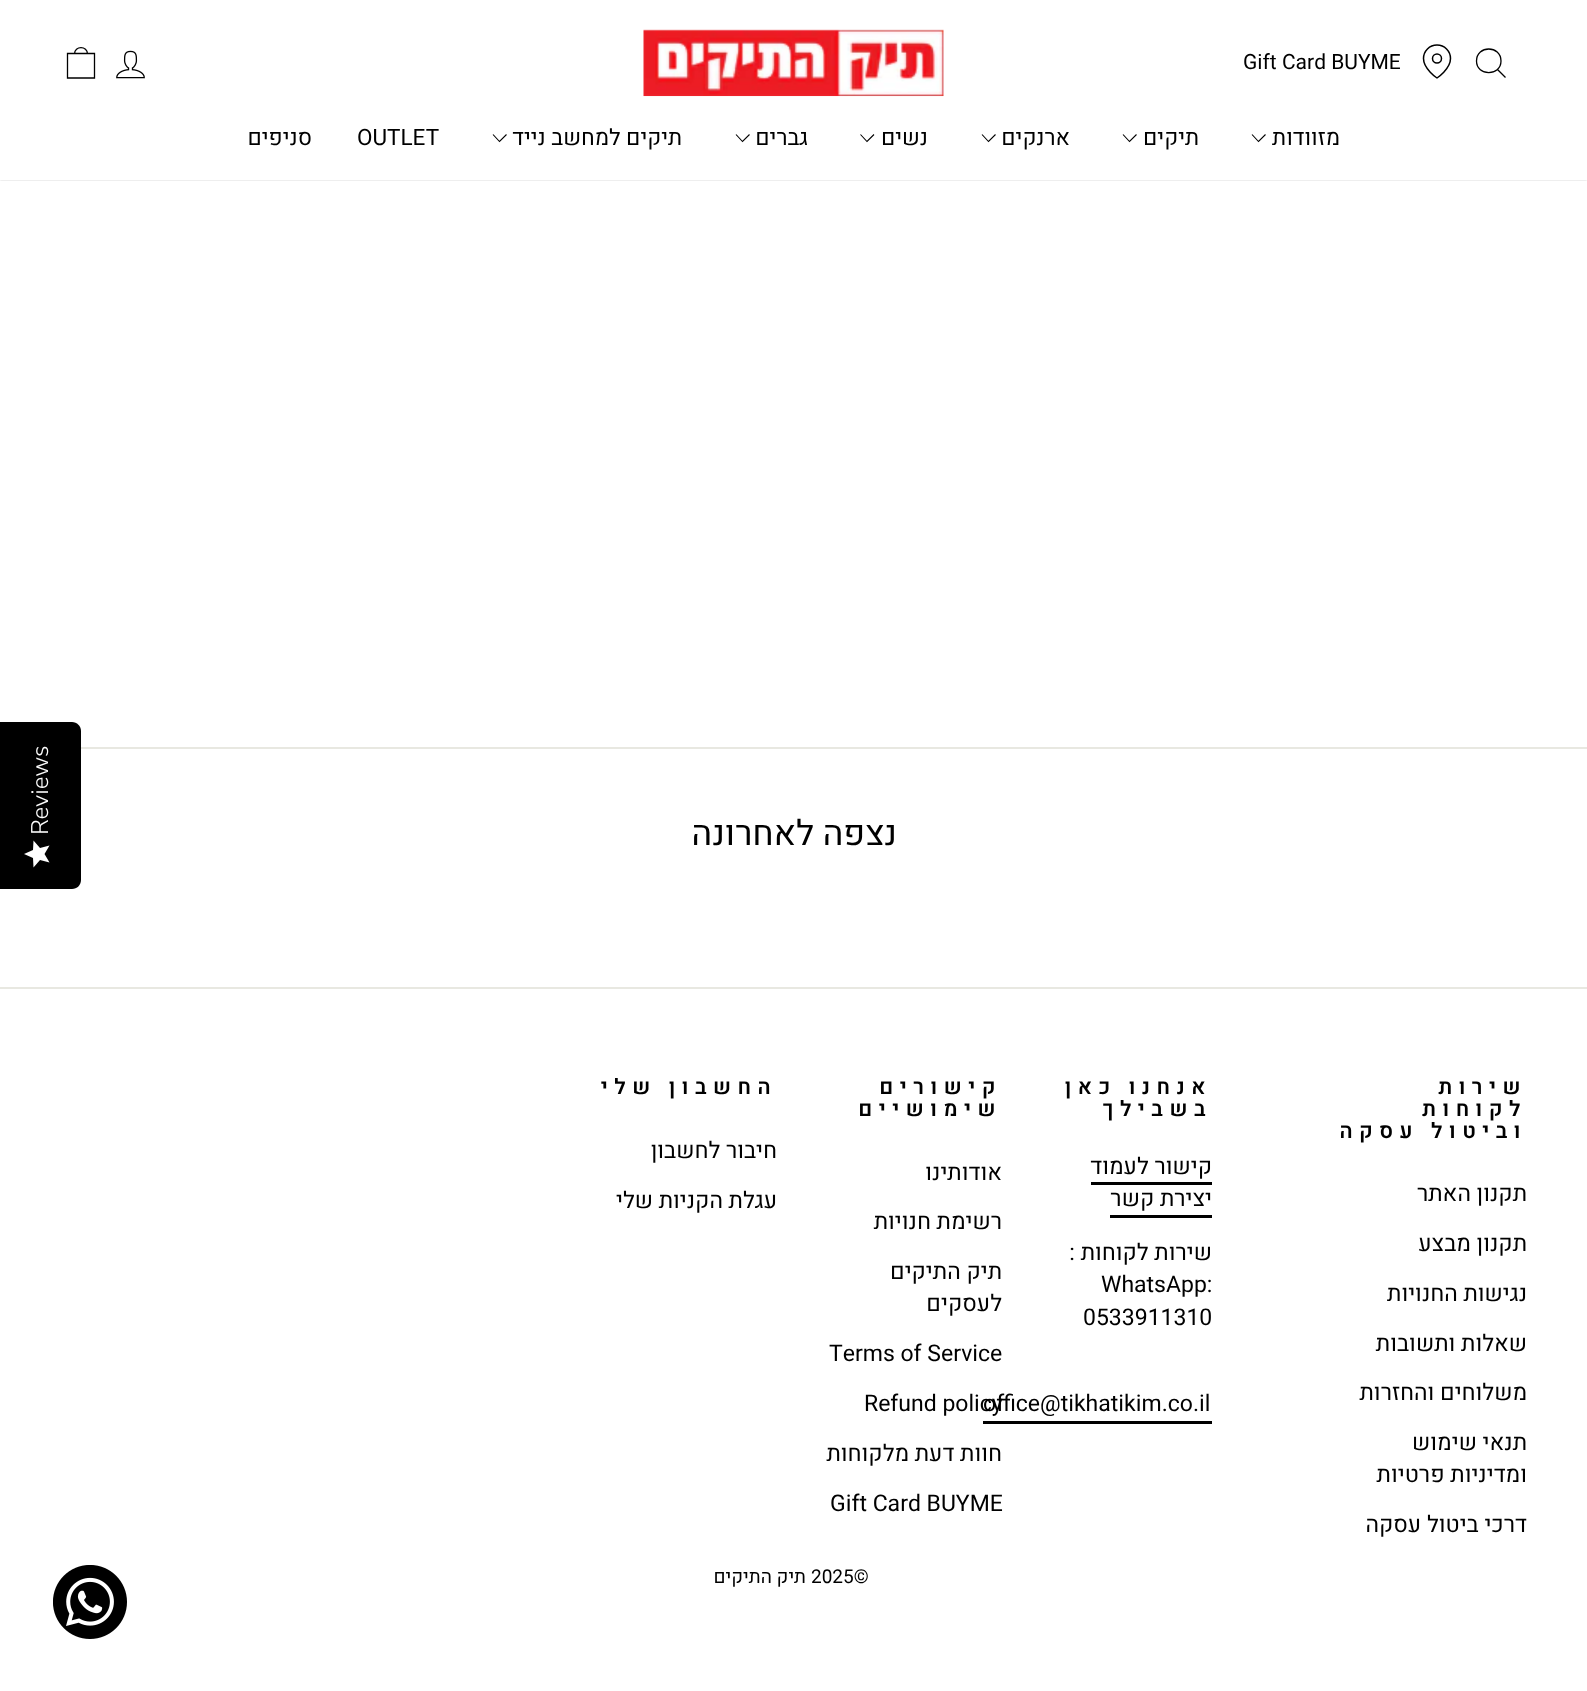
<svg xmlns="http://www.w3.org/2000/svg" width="1587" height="1691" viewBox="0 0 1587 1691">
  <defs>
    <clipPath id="clip1"><rect x="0" y="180" width="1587" height="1"/></clipPath>
    <filter id="blur1" x="-50%" y="-200%" width="200%" height="500%"><feGaussianBlur stdDeviation="1"/></filter>
    <linearGradient id="g1" gradientUnits="userSpaceOnUse" x1="24" y1="867" x2="24" y2="840"><stop offset="1" stop-color="#fefefe"/><stop offset="1" stop-color="#eaeaea"/></linearGradient>
  </defs>
  <rect width="100%" height="100%" fill="#ffffff"/>
  <g clip-path="url(#clip1)">
    <rect x="0" y="0" width="1587" height="180" fill="#000000" fill-opacity="0.2" filter="url(#blur1)"/>
  </g>
  <path d="M1501 61C1501 76.5 1476.5 76.5 1476.5 61C1476.5 45 1501 45 1501 61ZM1505.5 77.5L1497.5 69.5" fill="none" stroke="#000000" stroke-width="1.3"/>
  <path d="M1450.5 58.5C1450.5 69 1437 78 1437 78C1437 78 1423.5 69 1423.5 58.5C1423.5 51 1429.5 45 1437 45C1444.5 45 1450.5 51 1450.5 58.5Z" fill="none" stroke="#000000" stroke-width="1.5" stroke-linecap="round" stroke-linejoin="round"/>
  <circle cx="1437" cy="58.5" r="4.5" fill="none" stroke="#000000" stroke-width="1.5"/>
  <text x="1243" y="69" font-family="Heebo" font-size="21" fill="#000000">Gift Card BUYME</text>
  <image x="643" y="29" width="301" height="68" href="img1.png"/>
  <image x="116" y="50" width="29" height="29" href="img2.png"/>
  <path d="M67.5 53.5H94.5V78H67.5ZM74.5 54C74.5 45.5 87.5 45.5 87.5 54" fill="none" stroke="#000000" stroke-width="1.3"/>
  <text x="1340" y="145" font-family="Heebo" font-size="22.5" direction="rtl" fill="#000000">מזוודות</text>
  <path d="M1252 134.5L1258.5 141.5L1265.5 134.5" fill="none" stroke="#000000" stroke-width="1.1"/>
  <text x="1199" y="145" font-family="Heebo" font-size="22.5" direction="rtl" fill="#000000">תיקים</text>
  <path d="M1123 134.5L1129.5 141.5L1136.5 134.5" fill="none" stroke="#000000" stroke-width="1.1"/>
  <text x="1070" y="145" font-family="Heebo" font-size="22.5" direction="rtl" fill="#000000">ארנקים</text>
  <path d="M982 134.5L988.5 141.5L995.5 134.5" fill="none" stroke="#000000" stroke-width="1.1"/>
  <text x="928" y="145" font-family="Heebo" font-size="22.5" direction="rtl" fill="#000000">נשים</text>
  <path d="M860.5 134.5L867 141.5L874 134.5" fill="none" stroke="#000000" stroke-width="1.1"/>
  <text x="808" y="145" font-family="Heebo" font-size="22.5" direction="rtl" fill="#000000">גברים</text>
  <path d="M736 134.5L742.5 141.5L749.5 134.5" fill="none" stroke="#000000" stroke-width="1.1"/>
  <text x="682" y="145" font-family="Heebo" font-size="22.5" direction="rtl" fill="#000000">תיקים למחשב נייד</text>
  <path d="M493 134.5L499.5 141.5L506.5 134.5" fill="none" stroke="#000000" stroke-width="1.1"/>
  <text x="357" y="145" font-family="Heebo" font-size="22.5" fill="#000000">OUTLET</text>
  <text x="312" y="145" font-family="Heebo" font-size="22.5" direction="rtl" fill="#000000">סניפים</text>
  <rect x="81" y="747" width="1506" height="2" fill="#e8e8e1"/>
  <text x="897" y="845" font-family="Heebo" font-size="35" direction="rtl" fill="#000000">נצפה לאחרונה</text>
  <rect x="0" y="987" width="1587" height="2" fill="#e8e8e1"/>
  <text x="1527" y="1094" font-family="Heebo" font-size="21.5" font-weight="600" letter-spacing="6.5" direction="rtl" fill="#000000">שירות</text>
  <text x="1527" y="1116" font-family="Heebo" font-size="21.5" font-weight="600" letter-spacing="6.5" direction="rtl" fill="#000000">לקוחות</text>
  <text x="1527" y="1138" font-family="Heebo" font-size="21.5" font-weight="600" letter-spacing="6.5" direction="rtl" fill="#000000">וביטול עסקה</text>
  <text x="1527" y="1201" font-family="Heebo" font-size="23" direction="rtl" fill="#000000">תקנון האתר</text>
  <text x="1527" y="1251" font-family="Heebo" font-size="23" direction="rtl" fill="#000000">תקנון מבצע</text>
  <text x="1527" y="1301" font-family="Heebo" font-size="23" direction="rtl" fill="#000000">נגישות החנויות</text>
  <text x="1527" y="1351" font-family="Heebo" font-size="23" direction="rtl" fill="#000000">שאלות ותשובות</text>
  <text x="1527" y="1400" font-family="Heebo" font-size="23" direction="rtl" fill="#000000">משלוחים והחזרות</text>
  <text x="1527" y="1450" font-family="Heebo" font-size="23" direction="rtl" fill="#000000">תנאי שימוש</text>
  <text x="1527" y="1482" font-family="Heebo" font-size="23" direction="rtl" fill="#000000">ומדיניות פרטיות</text>
  <text x="1527" y="1532" font-family="Heebo" font-size="23" direction="rtl" fill="#000000">דרכי ביטול עסקה</text>
  <text x="1212" y="1094" font-family="Heebo" font-size="21.5" font-weight="600" letter-spacing="6.5" direction="rtl" fill="#000000">אנחנו כאן</text>
  <text x="1212" y="1116" font-family="Heebo" font-size="21.5" font-weight="600" letter-spacing="6.5" direction="rtl" fill="#000000">בשבילך</text>
  <text x="1212" y="1174" font-family="Heebo" font-size="23" direction="rtl" fill="#000000">קישור לעמוד</text>
  <rect x="1091" y="1182" width="121" height="3" fill="#000000"/>
  <text x="1212" y="1206" font-family="Heebo" font-size="23" direction="rtl" fill="#000000">יצירת קשר</text>
  <rect x="1110" y="1215" width="102" height="3" fill="#000000"/>
  <text x="1212" y="1260" font-family="Heebo" font-size="23" direction="rtl" fill="#000000">שירות לקוחות :</text>
  <text x="1101" y="1292" font-family="Heebo" font-size="23" fill="#000000">WhatsApp:</text>
  <text x="1083" y="1325" font-family="Heebo" font-size="23" fill="#000000">0533911310</text>
  <text x="864" y="1411" font-family="Heebo" font-size="23" fill="#000000">Refund policy</text>
  <text x="983" y="1411" font-family="Heebo" font-size="23" fill="#000000">office@tikhatikim.co.il</text>
  <rect x="983" y="1421" width="229" height="3" fill="#000000"/>
  <text x="1002" y="1094" font-family="Heebo" font-size="21.5" font-weight="600" letter-spacing="6.5" direction="rtl" fill="#000000">קישורים</text>
  <text x="1002" y="1116" font-family="Heebo" font-size="21.5" font-weight="600" letter-spacing="6.5" direction="rtl" fill="#000000">שימושיים</text>
  <text x="1002" y="1180" font-family="Heebo" font-size="23" direction="rtl" fill="#000000">אודותינו</text>
  <text x="1002" y="1229" font-family="Heebo" font-size="23" direction="rtl" fill="#000000">רשימת חנויות</text>
  <text x="1002" y="1279" font-family="Heebo" font-size="23" direction="rtl" fill="#000000">תיק התיקים</text>
  <text x="1002" y="1311" font-family="Heebo" font-size="23" direction="rtl" fill="#000000">לעסקים</text>
  <text x="829" y="1361" font-family="Heebo" font-size="23" fill="#000000">Terms of Service</text>
  <text x="1002" y="1461" font-family="Heebo" font-size="23" direction="rtl" fill="#000000">חוות דעת מלקוחות</text>
  <text x="830" y="1511" font-family="Heebo" font-size="23" fill="#000000">Gift Card BUYME</text>
  <text x="777" y="1094" font-family="Heebo" font-size="21.5" font-weight="600" letter-spacing="6.5" direction="rtl" fill="#000000">החשבון שלי</text>
  <text x="777" y="1158" font-family="Heebo" font-size="23" direction="rtl" fill="#000000">חיבור לחשבון</text>
  <text x="777" y="1208" font-family="Heebo" font-size="23" direction="rtl" fill="#000000">עגלת הקניות שלי</text>
  <text x="811" y="1583" font-family="Heebo" font-size="19" fill="#000000">2025©</text>
  <text x="806" y="1583" font-family="Heebo" font-size="19" direction="rtl" fill="#000000">תיק התיקים</text>
  <path d="M0 889V722H72C77 722 81 726 81 731V880C81 885 77 889 72 889Z" fill="#000000"/>
  <text x="48" y="835" transform="rotate(-90 48 835)" font-family="Nunito Sans" font-size="24" font-weight="300" fill="#fefefe">Reviews</text>
  <path d="M44.5 854L49.5 845.5L40 848L33.5 840.5L33 850L24 854L33 858L33.5 867.5L40 860L49.5 862.5Z" fill="url(#g1)"/>
  <image x="53" y="1565" width="74" height="74" href="img3.png"/>
</svg>
